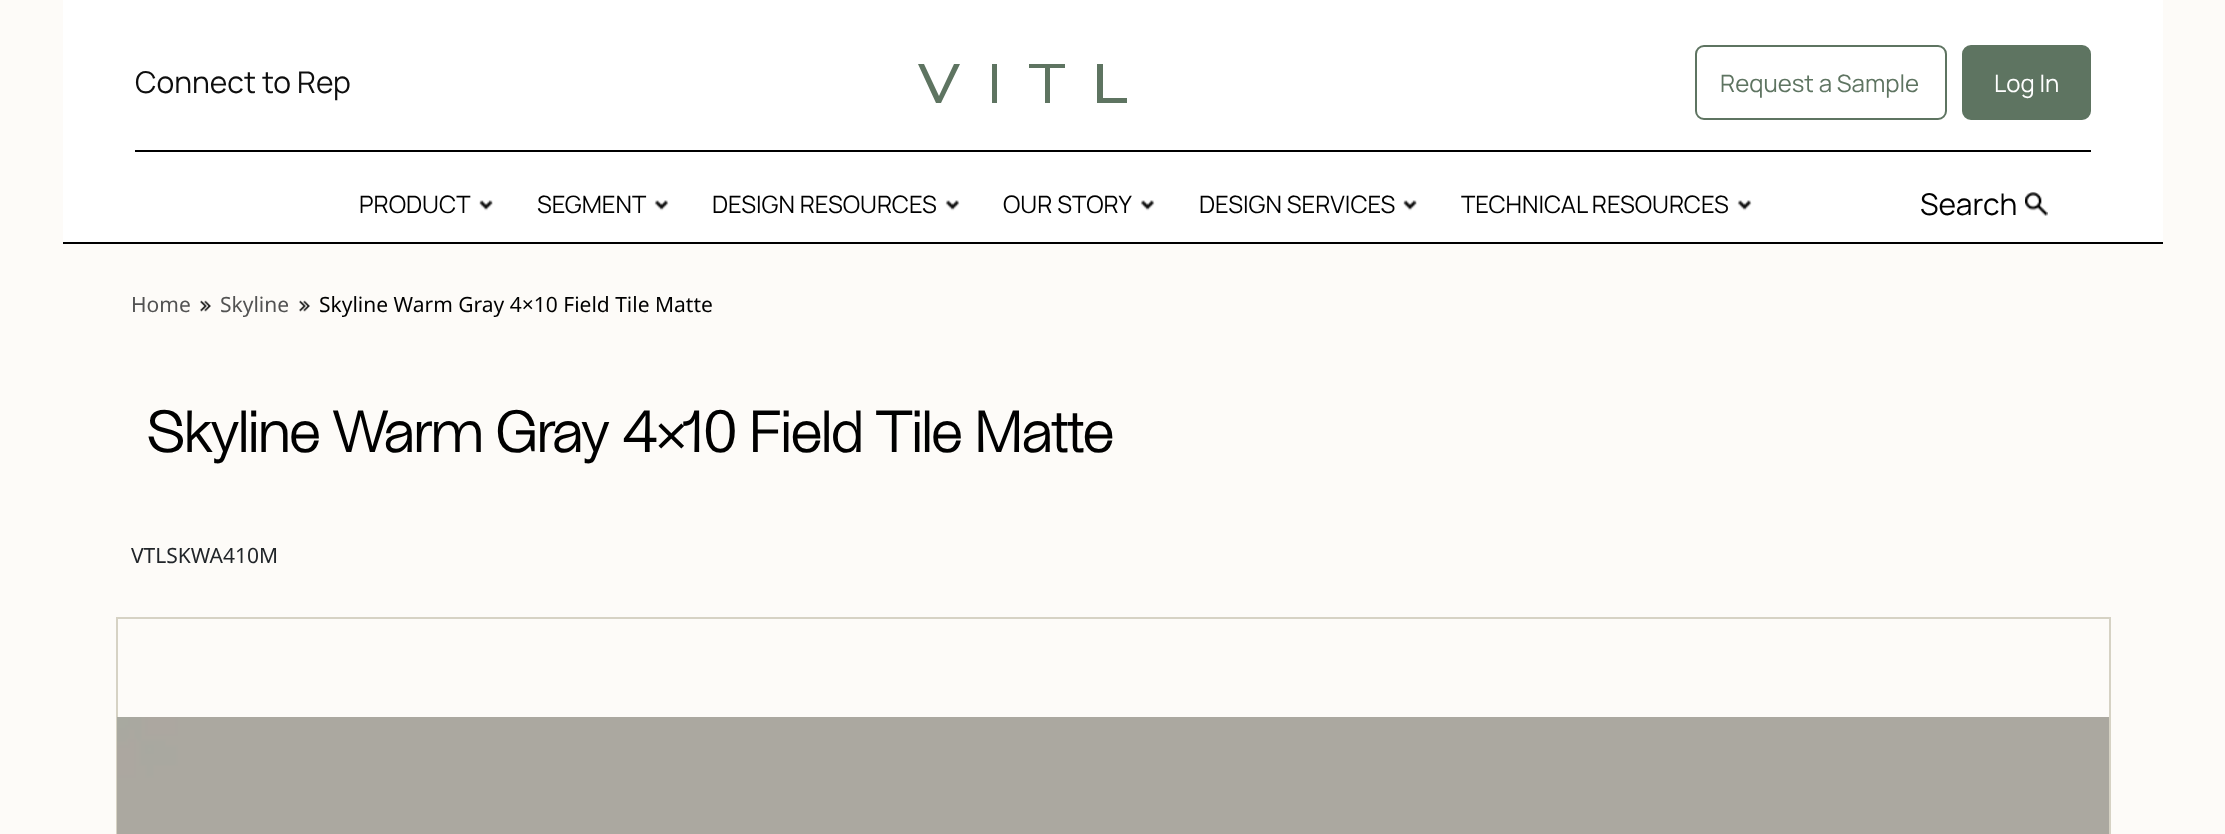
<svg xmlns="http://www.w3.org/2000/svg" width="2225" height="834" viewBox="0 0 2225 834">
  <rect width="100%" height="100%" fill="#fdfbf8"/>
  <rect x="63" y="0" width="2100" height="242" fill="#ffffff"/>
  <rect x="63" y="242" width="2100" height="2" fill="#000000"/>
  <rect x="135" y="150" width="1956" height="2" fill="#000000"/>
  <text x="135" y="93" font-family="Manrope" font-size="30" fill="#0e0e0e">Connect to Rep</text>
  <path d="M954 64L939 96L924 64H918L936 103H941L960 64ZM992 103H997V64H992ZM1029 64V68H1045V103H1050V68H1065V64ZM1097 64V103H1127V98H1103V64Z" fill="#5e7461"/>
  <rect x="1696" y="46" width="250" height="73" rx="8" fill="none" stroke="#5e7461" stroke-width="2"/>
  <text x="1720" y="92" font-family="Manrope" font-size="24" fill="#5e7461">Request a Sample</text>
  <rect x="1963" y="46" width="127" height="73" rx="8" fill="#5e7461" stroke="#5e7461" stroke-width="2"/>
  <text x="1994" y="92" font-family="Manrope" font-size="24" fill="#ffffff">Log In</text>
  <text x="359" y="213" font-family="Manrope" font-size="24" fill="#000000">PRODUCT</text>
  <image x="479" y="200" width="14" height="11" href="img1.png"/>
  <text x="537" y="213" font-family="Manrope" font-size="24" fill="#000000">SEGMENT</text>
  <image x="654" y="200" width="15" height="11" href="img2.png"/>
  <text x="712" y="213" font-family="Manrope" font-size="24" fill="#000000">DESIGN RESOURCES</text>
  <image x="945" y="200" width="15" height="11" href="img2.png"/>
  <text x="1003" y="213" font-family="Manrope" font-size="24" fill="#000000">OUR STORY</text>
  <image x="1140" y="200" width="15" height="11" href="img2.png"/>
  <text x="1199" y="213" font-family="Manrope" font-size="24" fill="#000000">DESIGN SERVICES</text>
  <image x="1403" y="200" width="14" height="11" href="img1.png"/>
  <text x="1461" y="213" font-family="Manrope" font-size="24" fill="#000000">TECHNICAL RESOURCES</text>
  <image x="1737" y="200" width="15" height="11" href="img2.png"/>
  <text x="1920" y="215" font-family="Manrope" font-size="30" fill="#000000">Search</text>
  <image x="2025" y="192" width="23" height="24" href="img3.png"/>
  <text x="131" y="312" font-family="Noto Sans" font-size="21" fill="#525252">Home</text>
  <image x="200" y="300" width="11" height="12" href="img4.png"/>
  <text x="220" y="312" font-family="Noto Sans" font-size="21" fill="#525252">Skyline</text>
  <image x="299" y="300" width="11" height="12" href="img4.png"/>
  <text x="319" y="312" font-family="Noto Sans" font-size="21" fill="#000000">Skyline Warm Gray 4×10 Field Tile Matte</text>
  <text x="146" y="452" font-family="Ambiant" font-size="57" font-weight="bold" fill="#000000">Skyline Warm Gray 4×10 Field Tile Matte</text>
  <text x="131" y="563" font-family="Noto Sans" font-size="21" fill="#212529">VTLSKWA410M</text>
  <rect x="117" y="618" width="1993" height="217" fill="none" stroke="#d6d2c4" stroke-width="2"/>
  <image x="117" y="717" width="1992" height="117" href="img5.png"/>
</svg>
